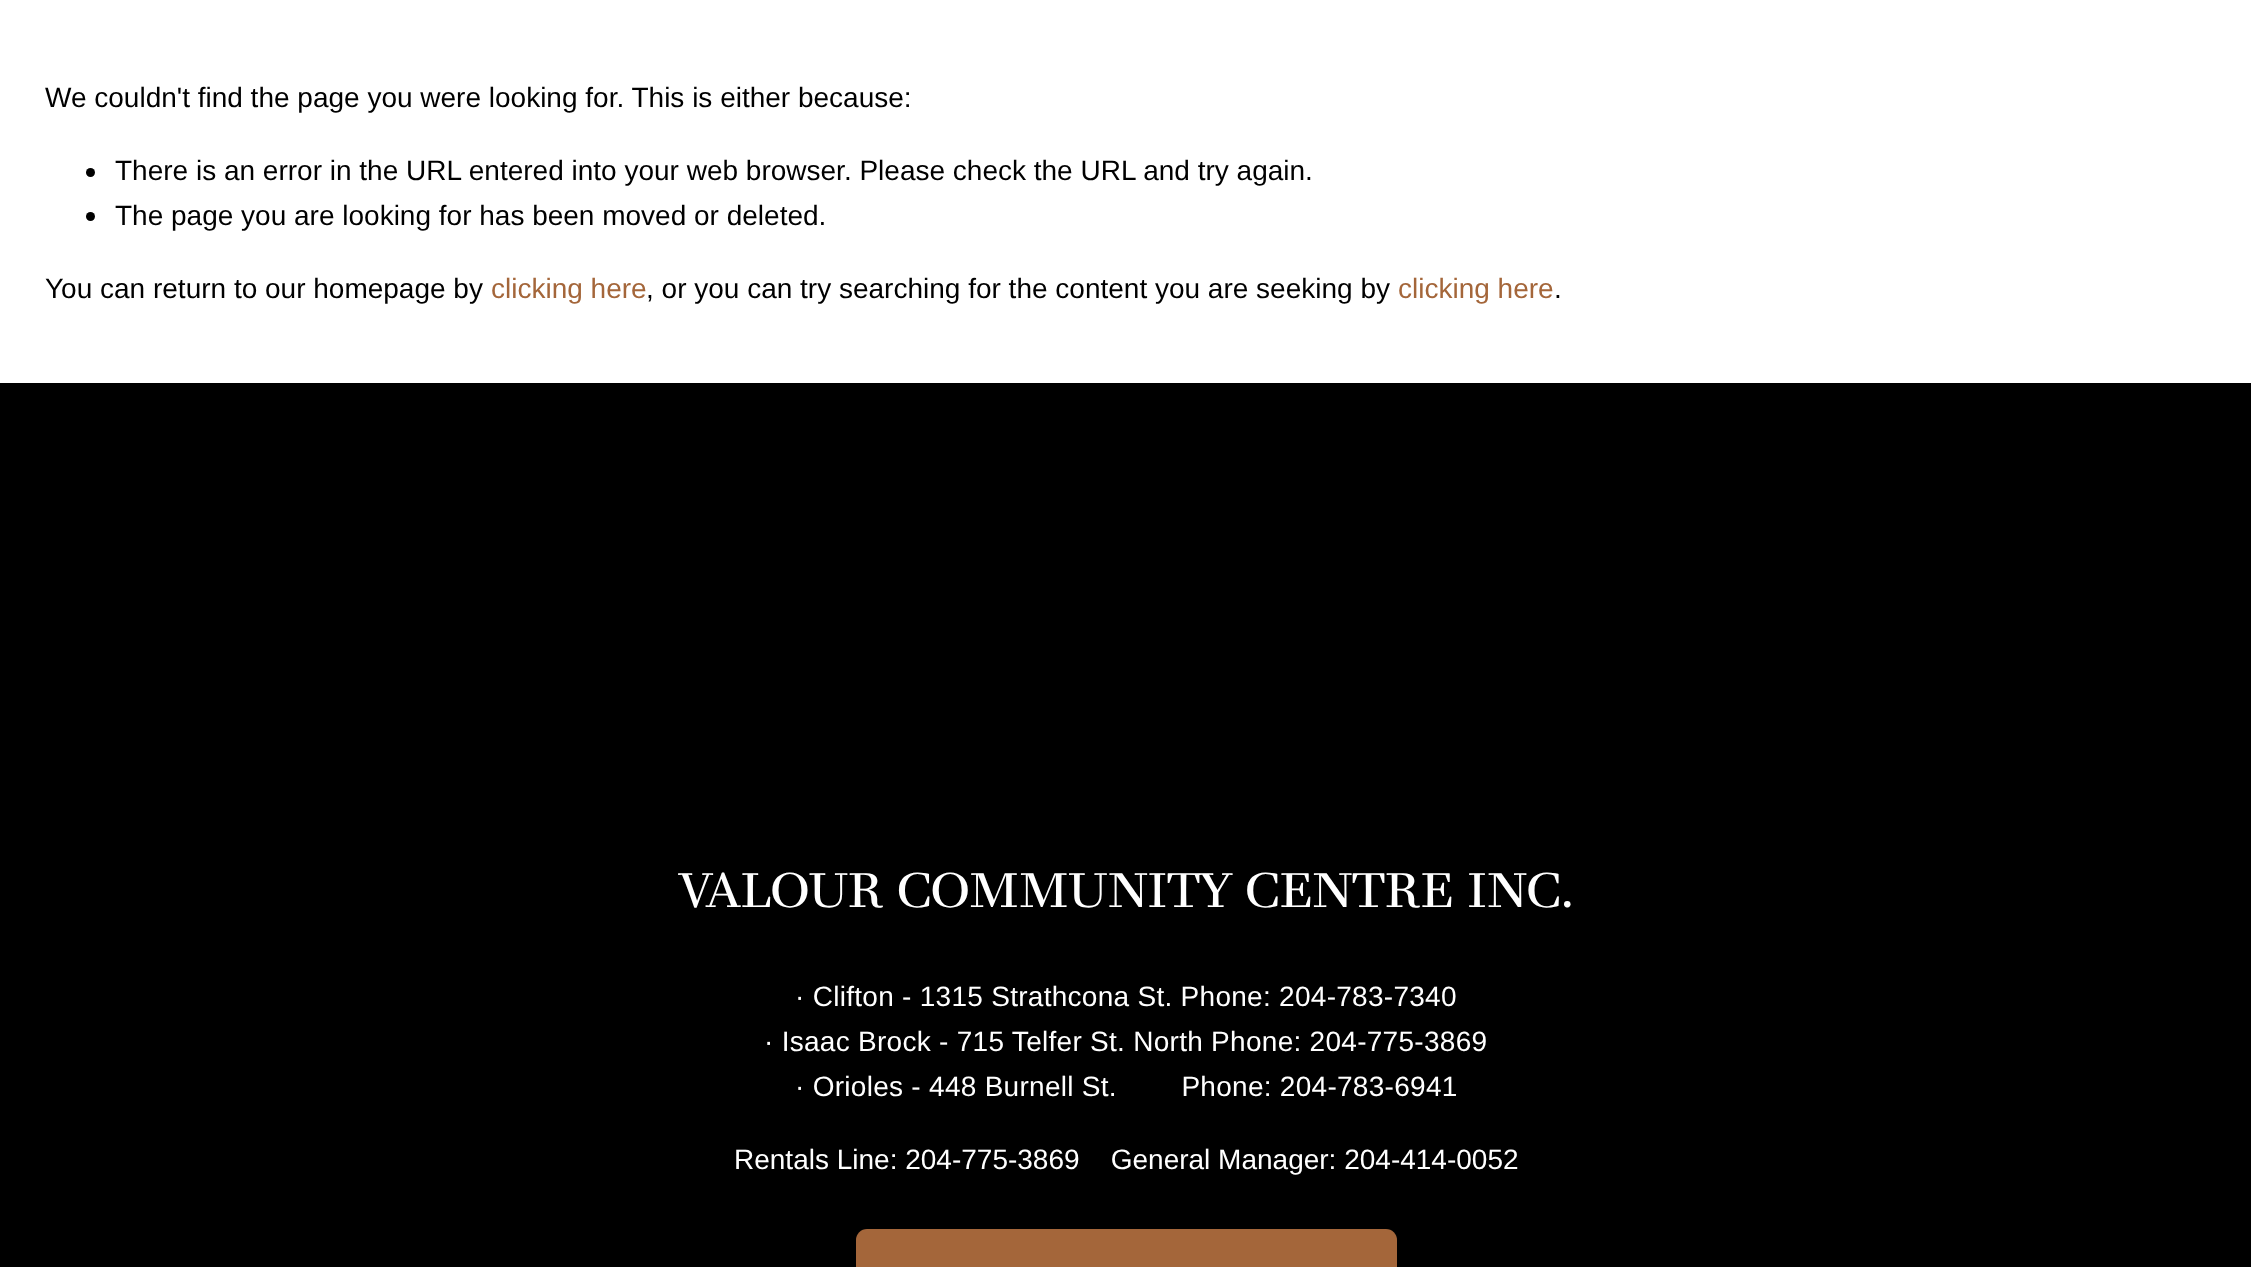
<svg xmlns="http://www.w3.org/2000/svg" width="2251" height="1267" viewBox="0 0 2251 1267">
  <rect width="100%" height="100%" fill="#ffffff"/>
  <text x="45" y="107" font-family="Liberation Sans" font-size="28" fill="#000000">We couldn't find the page you were looking for. This is either because:</text>
  <circle cx="90.5" cy="172.5" r="4.5" fill="#000000"/>
  <text x="115" y="180" font-family="Liberation Sans" font-size="28" fill="#000000">There is an error in the URL entered into your web browser. Please check the URL and try again.</text>
  <circle cx="90.5" cy="216.5" r="4.5" fill="#000000"/>
  <text x="115" y="225" font-family="Liberation Sans" font-size="28" fill="#000000">The page you are looking for has been moved or deleted.</text>
  <text x="45" y="298" font-family="Liberation Sans" font-size="28" fill="#000000">You can return to our homepage by</text>
  <text x="491" y="298" font-family="Liberation Sans" font-size="28" fill="#a4663a">clicking here</text>
  <text x="646" y="298" font-family="Liberation Sans" font-size="28" fill="#000000">, or you can try searching for the content you are seeking by</text>
  <text x="1398" y="298" font-family="Liberation Sans" font-size="28" fill="#a4663a">clicking here</text>
  <text x="1554" y="298" font-family="Liberation Sans" font-size="28" fill="#000000">.</text>
  <rect x="0" y="383" width="2251" height="884" fill="#000000"/>
  <text x="679" y="907" font-family="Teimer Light" font-size="46.9" font-weight="300" fill="#ffffff">VALOUR COMMUNITY CENTRE INC.</text>
  <text x="795" y="1006" font-family="Liberation Sans" font-size="28" letter-spacing="0.28" fill="#ffffff">· Clifton - 1315 Strathcona St. Phone: 204-783-7340</text>
  <text x="764" y="1051" font-family="Liberation Sans" font-size="28" letter-spacing="0.28" fill="#ffffff">· Isaac Brock - 715 Telfer St. North Phone: 204-775-3869</text>
  <text x="795" y="1096" font-family="Liberation Sans" font-size="28" letter-spacing="0.28" fill="#ffffff" xml:space="preserve">· Orioles - 448 Burnell St.        Phone: 204-783-6941</text>
  <text x="734" y="1169" font-family="Liberation Sans" font-size="28" fill="#ffffff" xml:space="preserve">Rentals Line: 204-775-3869    General Manager: 204-414-0052</text>
  <rect x="856" y="1229" width="541" height="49" rx="11" fill="#a4663a"/>
</svg>
